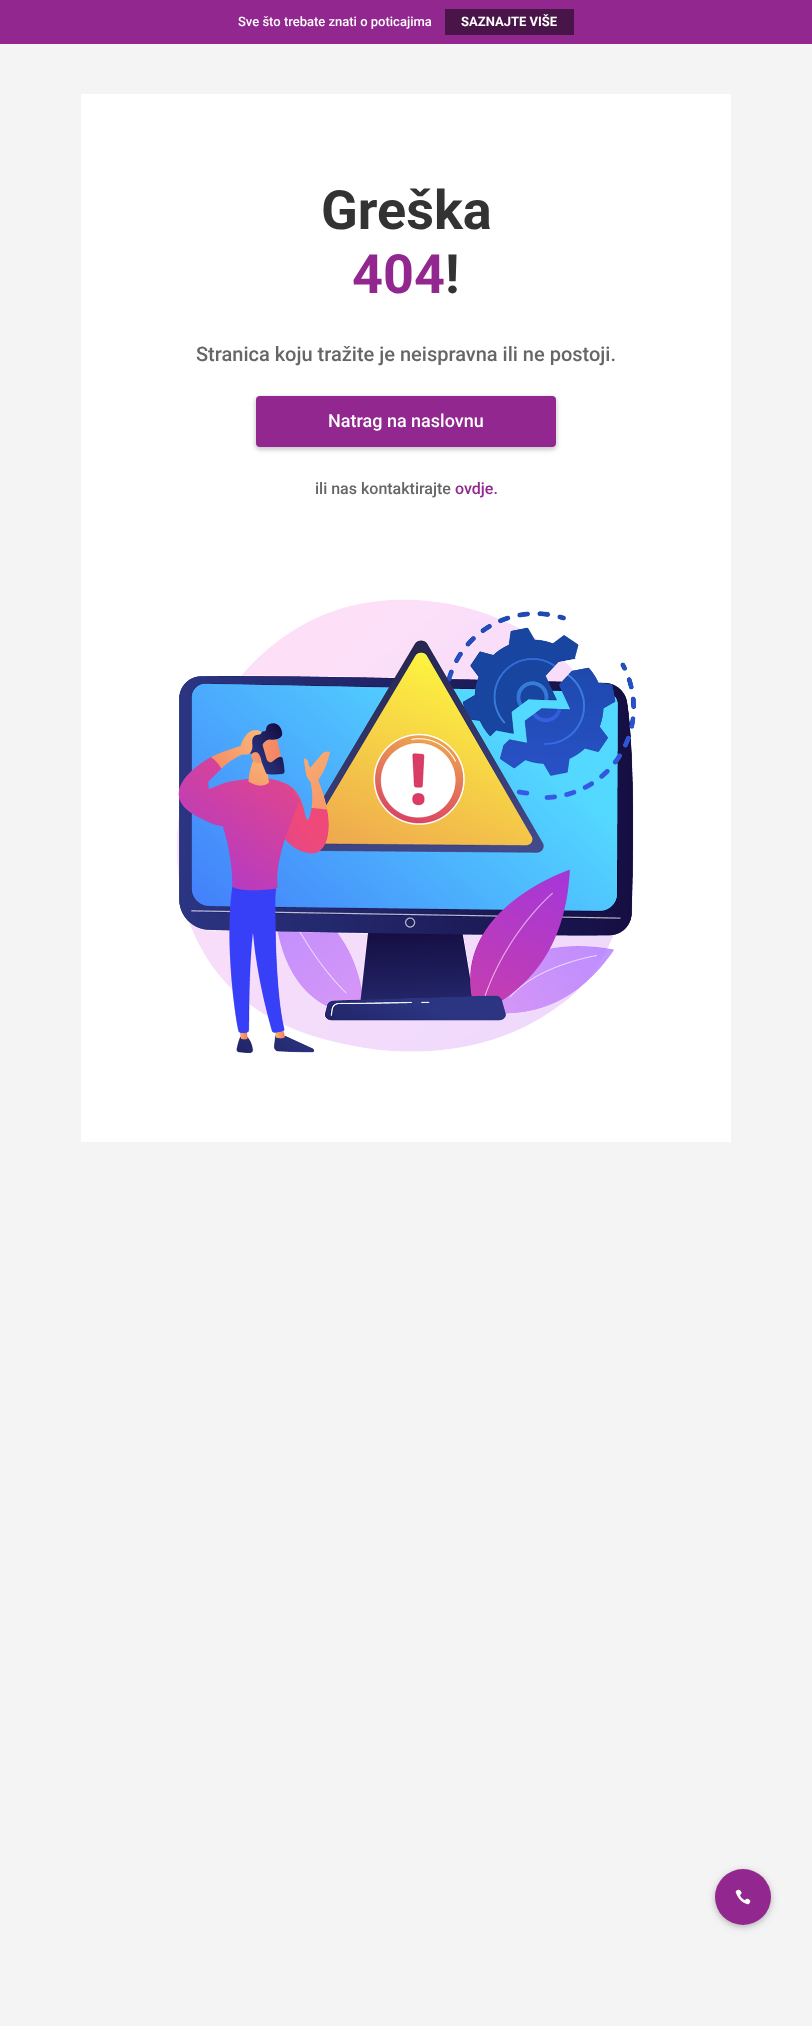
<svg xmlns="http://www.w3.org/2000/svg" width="812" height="2026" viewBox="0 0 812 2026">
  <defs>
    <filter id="blur1" x="-50%" y="-200%" width="200%" height="500%"><feGaussianBlur stdDeviation="2"/></filter>
    <filter id="blur2" x="-50%" y="-200%" width="200%" height="500%"><feGaussianBlur stdDeviation="5"/></filter>
    <filter id="blur3" x="-50%" y="-200%" width="200%" height="500%"><feGaussianBlur stdDeviation="2.5"/></filter>
  </defs>
  <rect width="100%" height="100%" fill="#f4f4f4"/>
  <rect x="0" y="0" width="812" height="44" fill="#92278f"/>
  <text x="238" y="26" font-family="Roboto" font-size="13" font-weight="500" fill="#ffffff">Sve što trebate znati o poticajima</text>
  <rect x="445" y="9" width="129" height="26" fill="#491448"/>
  <text x="461" y="26" font-family="Roboto" font-size="13" font-weight="bold" fill="#ffffff">SAZNAJTE VIŠE</text>
  <rect x="81" y="94" width="650" height="1048" fill="#ffffff"/>
  <text x="321" y="229" font-family="Roboto" font-size="54" font-weight="bold" fill="#333333">Greška</text>
  <text x="352" y="293" font-family="Roboto" font-size="54" font-weight="bold" fill="#92278f">404</text>
  <text x="445" y="293" font-family="Roboto" font-size="54" font-weight="bold" fill="#333333">!</text>
  <text x="196" y="361" font-family="Roboto" font-size="20" font-weight="500" fill="#666666">Stranica koju tražite je neispravna ili ne postoji.</text>
  <rect x="255" y="397" width="302" height="53" rx="5" fill="#000000" fill-opacity="0.2" filter="url(#blur1)"/>
  <rect x="257" y="397" width="298" height="49" rx="3" fill="#92278f" stroke="#92278f" stroke-width="2"/>
  <text x="328" y="427" font-family="Roboto" font-size="18" font-weight="500" fill="#ffffff">Natrag na naslovnu</text>
  <text x="315" y="494" font-family="Roboto" font-size="16" font-weight="500" fill="#666666">ili nas kontaktirajte</text>
  <text x="455" y="494" font-family="Roboto" font-size="16" font-weight="500" fill="#92278f">ovdje.</text>
  <image x="177" y="599" width="460" height="455" href="img1.png"/>
  <rect x="715" y="1871" width="56" height="56" rx="28" fill="#000000" fill-opacity="0.12" filter="url(#blur2)"/>
  <rect x="715" y="1871" width="56" height="56" rx="28" fill="#000000" fill-opacity="0.16" filter="url(#blur3)"/>
  <circle cx="743" cy="1897" r="28" fill="#92278f"/>
  <image x="735" y="1889" width="16" height="16" href="img2.png"/>
</svg>
